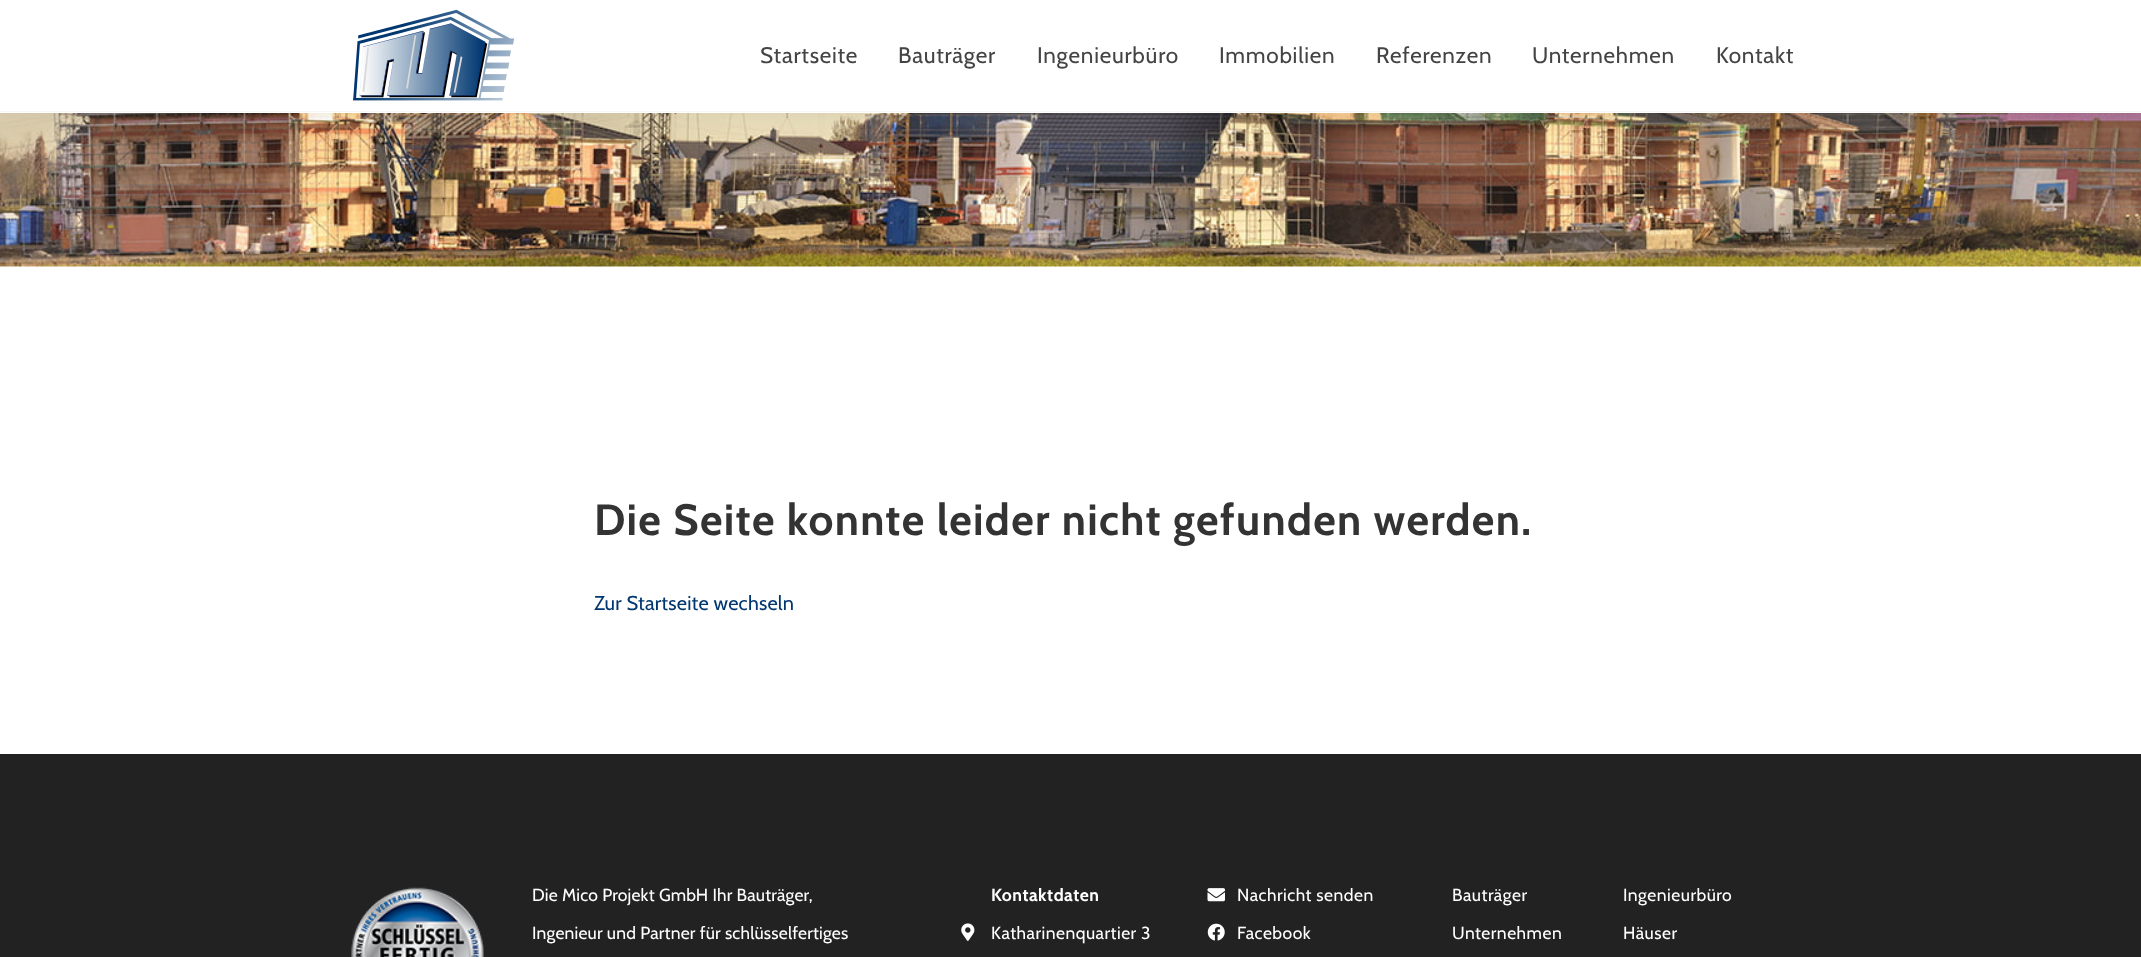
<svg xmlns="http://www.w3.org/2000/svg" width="2141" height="957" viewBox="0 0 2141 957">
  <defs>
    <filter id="blur1" x="-50%" y="-200%" width="200%" height="500%"><feGaussianBlur stdDeviation="12.5"/></filter>
  </defs>
  <rect width="100%" height="100%" fill="#ffffff"/>
  <image x="0" y="113" width="2141" height="154" href="img2.png"/>
  <rect x="0" y="0" width="2141" height="113" fill="#000000" fill-opacity="0.08" filter="url(#blur1)"/>
  <rect x="0" y="0" width="2141" height="113" fill="#ffffff"/>
  <rect x="0" y="111" width="2141" height="1" fill="#f7f7f7"/>
  <image x="353" y="9" width="162" height="92" href="img1.png"/>
  <text x="760" y="63" font-family="Cabin" font-size="22.5" letter-spacing="0.75" fill="#444444">Startseite</text>
  <text x="898" y="63" font-family="Cabin" font-size="22.5" letter-spacing="0.75" fill="#444444">Bauträger</text>
  <text x="1037" y="63" font-family="Cabin" font-size="22.5" letter-spacing="0.75" fill="#444444">Ingenieurbüro</text>
  <text x="1219" y="63" font-family="Cabin" font-size="22.5" letter-spacing="0.75" fill="#444444">Immobilien</text>
  <text x="1376" y="63" font-family="Cabin" font-size="22.5" letter-spacing="0.75" fill="#444444">Referenzen</text>
  <text x="1532" y="63" font-family="Cabin" font-size="22.5" letter-spacing="0.75" fill="#444444">Unternehmen</text>
  <text x="1716" y="63" font-family="Cabin" font-size="22.5" letter-spacing="0.75" fill="#444444">Kontakt</text>
  <text x="594" y="535" font-family="Cabin" font-size="43.75" font-weight="bold" letter-spacing="1.3" fill="#333333">Die Seite konnte leider nicht gefunden werden.</text>
  <text x="594" y="610" font-family="Cabin" font-size="20" letter-spacing="0.2" fill="#003770">Zur Startseite wechseln</text>
  <rect x="0" y="754" width="2141" height="203" fill="#222222"/>
  <image x="351" y="887" width="133" height="70" href="img3.png"/>
  <text x="532" y="901" font-family="Cabin" font-size="17.5" letter-spacing="0.2" fill="#ffffff">Die Mico Projekt GmbH Ihr Bauträger,</text>
  <text x="532" y="939" font-family="Cabin" font-size="17.5" letter-spacing="0.2" fill="#ffffff">Ingenieur und Partner für schlüsselfertiges</text>
  <text x="991" y="901" font-family="Cabin" font-size="17.5" font-weight="bold" letter-spacing="0.5" fill="#ffffff">Kontaktdaten</text>
  <image x="961" y="923" width="14" height="18" href="img4.png"/>
  <text x="991" y="939" font-family="Cabin" font-size="17.5" letter-spacing="0.5" fill="#ffffff">Katharinenquartier 3</text>
  <image x="1207" y="888" width="18" height="14" href="img5.png"/>
  <text x="1237" y="901" font-family="Cabin" font-size="17.5" letter-spacing="0.5" fill="#ffffff">Nachricht senden</text>
  <image x="1207" y="923" width="18" height="18" href="img6.png"/>
  <text x="1237" y="939" font-family="Cabin" font-size="17.5" letter-spacing="0.5" fill="#ffffff">Facebook</text>
  <text x="1452" y="901" font-family="Cabin" font-size="17.5" letter-spacing="0.5" fill="#ffffff">Bauträger</text>
  <text x="1623" y="901" font-family="Cabin" font-size="17.5" letter-spacing="0.5" fill="#ffffff">Ingenieurbüro</text>
  <text x="1452" y="939" font-family="Cabin" font-size="17.5" letter-spacing="0.5" fill="#ffffff">Unternehmen</text>
  <text x="1623" y="939" font-family="Cabin" font-size="17.5" letter-spacing="0.5" fill="#ffffff">Häuser</text>
</svg>
